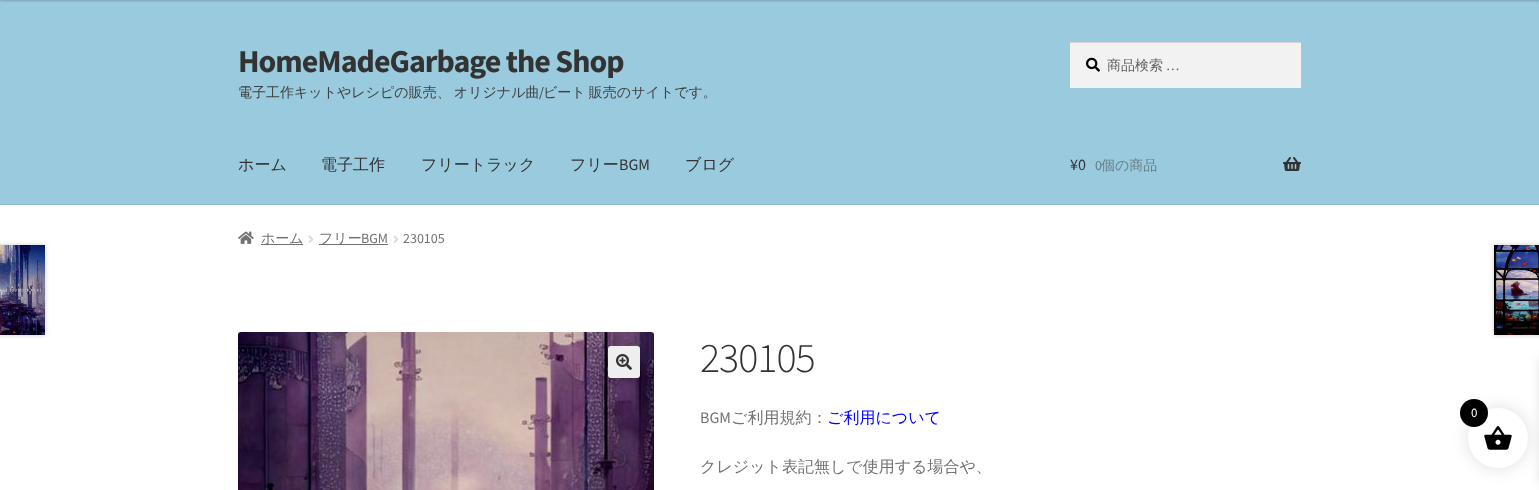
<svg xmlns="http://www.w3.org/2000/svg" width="1539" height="490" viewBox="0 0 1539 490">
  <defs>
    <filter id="blur1" x="-50%" y="-200%" width="200%" height="500%"><feGaussianBlur stdDeviation="1"/></filter>
    <filter id="blur2" x="-50%" y="-200%" width="200%" height="500%"><feGaussianBlur stdDeviation="2.5"/></filter>
    <filter id="blur3" x="-50%" y="-200%" width="200%" height="500%"><feGaussianBlur stdDeviation="7.5"/></filter>
    <filter id="blur4" x="-50%" y="-200%" width="200%" height="500%"><feGaussianBlur stdDeviation="5"/></filter>
  </defs>
  <rect width="100%" height="100%" fill="#ffffff"/>
  <rect x="0" y="0" width="1539" height="204" fill="#99cadd"/>
  <rect x="0" y="-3" width="1539" height="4" fill="#000000" fill-opacity="0.2" filter="url(#blur1)"/>
  <rect x="0" y="204" width="1539" height="1" fill="#8abbce"/>
  <text x="238" y="72" font-family="Source Sans Pro" font-size="32" font-weight="bold" letter-spacing="-1" fill="#333333">HomeMadeGarbage the Shop</text>
  <text x="238" y="97" word-spacing="-1" font-family="WenQuanYi Zen Hei" font-size="14" font-weight="500" fill="#404040">電子工作キットやレシピの販売、 オリジナル曲</text>
  <text x="539" y="97" font-family="Source Sans Pro" font-size="14" fill="#404040">/</text>
  <text x="543" y="97" word-spacing="-1" font-family="WenQuanYi Zen Hei" font-size="14" font-weight="500" fill="#404040">ビート 販売のサイトです。</text>
  <rect x="1070" y="43" width="231" height="45" fill="#f2f2f2"/>
  <image x="1086" y="57" width="14" height="15" href="img1.png"/>
  <rect x="1070" y="42" width="231" height="1" fill="#d4d4d4"/>
  <text x="1107" y="70" font-family="WenQuanYi Zen Hei" font-size="14" font-weight="500" fill="#616161">商品検索</text>
  <text x="1166" y="70" font-family="Source Sans Pro" font-size="14" fill="#616161">…</text>
  <text x="238" y="170" font-family="WenQuanYi Zen Hei" font-size="16" font-weight="500" fill="#333333">ホーム</text>
  <text x="321" y="170" font-family="WenQuanYi Zen Hei" font-size="16" font-weight="500" fill="#333333">電子工作</text>
  <text x="421" y="170" font-family="WenQuanYi Zen Hei" font-size="16" font-weight="500" fill="#333333">フリートラック</text>
  <text x="570" y="170" font-family="WenQuanYi Zen Hei" font-size="16" font-weight="500" fill="#333333">フリー</text>
  <text x="619" y="170" font-family="Source Sans Pro" font-size="16" fill="#333333">BGM</text>
  <text x="685" y="170" font-family="WenQuanYi Zen Hei" font-size="16" font-weight="500" fill="#333333">ブログ</text>
  <text x="1070" y="170" font-family="Source Sans Pro" font-size="16" fill="#333333">¥0</text>
  <text x="1095" y="170" font-family="Source Sans Pro" font-size="14" fill="#667f88">0</text>
  <text x="1101" y="170" font-family="WenQuanYi Zen Hei" font-size="14" font-weight="500" fill="#667f88">個の商品</text>
  <image x="1283" y="157" width="18" height="14" href="img2.png"/>
  <image x="238" y="231" width="16" height="13" href="img3.png"/>
  <rect x="261" y="244" width="42" height="1" fill="#727272"/>
  <text x="261" y="243" font-family="WenQuanYi Zen Hei" font-size="14" font-weight="500" fill="#727272">ホーム</text>
  <image x="308" y="235" width="6" height="8" href="img4.png"/>
  <rect x="319" y="244" width="69" height="1" fill="#727272"/>
  <text x="319" y="243" font-family="WenQuanYi Zen Hei" font-size="14" font-weight="500" fill="#727272">フリー</text>
  <text x="361" y="243" font-family="Source Sans Pro" font-size="14" fill="#727272">BGM</text>
  <image x="393" y="235" width="6" height="8" href="img4.png"/>
  <text x="403" y="243" font-family="Source Sans Pro" font-size="14" fill="#727272">230105</text>
  <rect x="-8" y="245" width="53" height="90" fill="#000000" fill-opacity="0.2" filter="url(#blur2)"/>
  <image x="0" y="245" width="45" height="90" href="img5.png"/>
  <rect x="1494" y="245" width="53" height="90" fill="#000000" fill-opacity="0.2" filter="url(#blur2)"/>
  <image x="1494" y="245" width="45" height="90" href="img6.png"/>
  <image x="238" y="332" width="416" height="158" href="img7.png"/>
  <rect x="608" y="346" width="32" height="32" rx="3" fill="#eeeeee"/>
  <image x="616" y="354" width="16" height="16" href="img8.png"/>
  <text x="700" y="372" font-family="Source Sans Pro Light" font-size="42" font-weight="300" letter-spacing="-1" fill="#333333">230105</text>
  <text x="700" y="423" font-family="Source Sans Pro" font-size="16" fill="#727272">BGM</text>
  <text x="731" y="423" font-family="WenQuanYi Zen Hei" font-size="16" font-weight="500" fill="#727272">ご利用規約：</text>
  <text x="827" y="423" font-family="WenQuanYi Zen Hei" font-size="16" font-weight="500" fill="#0000ff">ご利用について</text>
  <text x="700" y="472" font-family="WenQuanYi Zen Hei" font-size="16" font-weight="500" fill="#727272">クレジット表記無しで使用する場合や、</text>
  <rect x="1466" y="406" width="64" height="64" rx="32" fill="#000000" fill-opacity="0.1" filter="url(#blur3)"/>
  <rect x="1539" y="357" width="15" height="128" fill="#000000" fill-opacity="0.1" filter="url(#blur4)"/>
  <circle cx="1498" cy="438" r="30" fill="#ffffff"/>
  <image x="1484" y="426" width="28" height="24" href="img9.png"/>
  <circle cx="1474" cy="413" r="14" fill="#000000"/>
  <text x="1471" y="417" font-family="Source Sans Pro" font-size="13" fill="#ffffff">0</text>
</svg>
